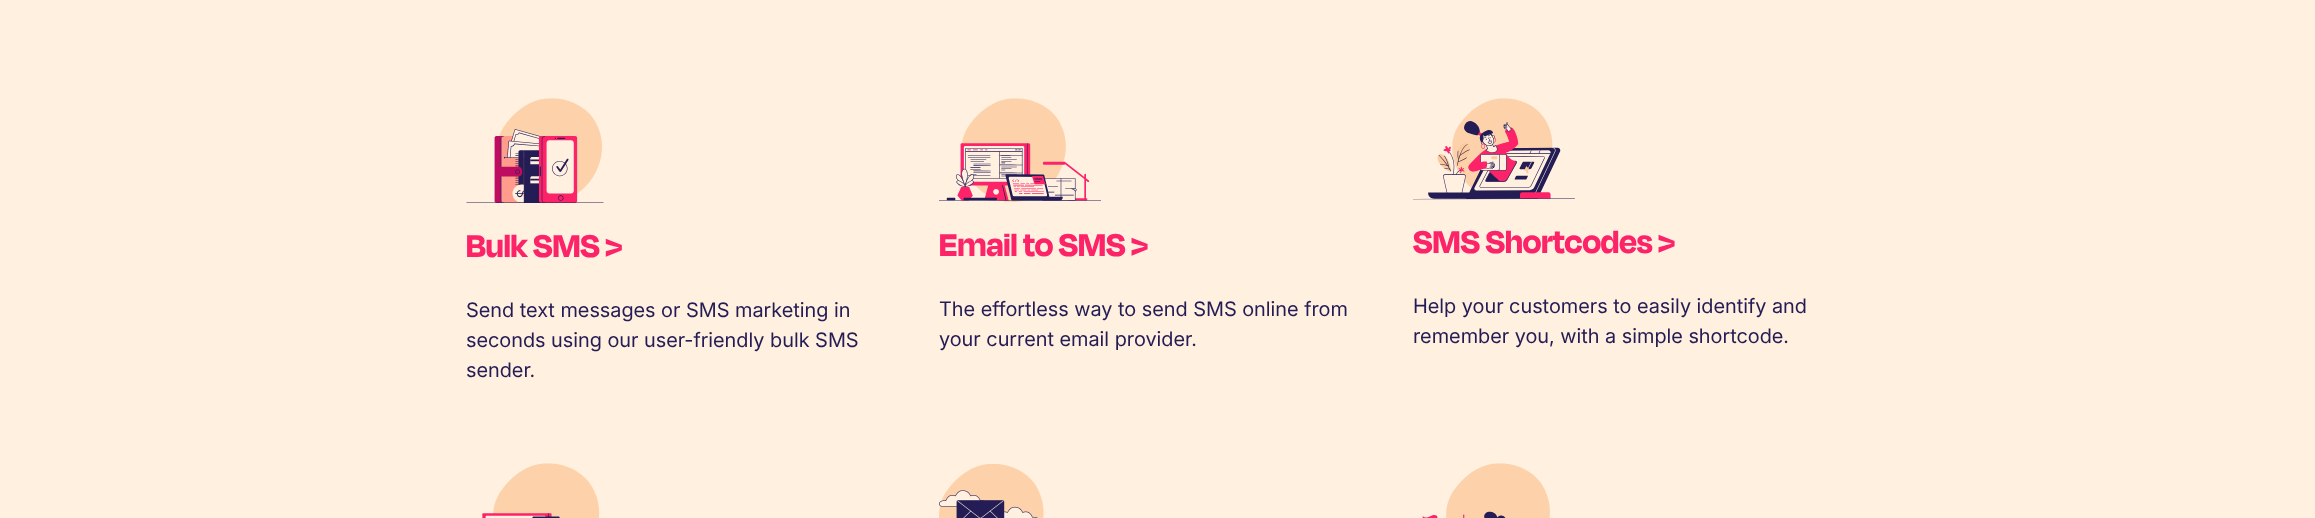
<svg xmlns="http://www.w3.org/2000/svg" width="2315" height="518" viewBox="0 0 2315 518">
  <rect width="100%" height="100%" fill="#fff0e0"/>
  <image x="466" y="98" width="138" height="105" href="img1.png"/>
  <text x="466" y="257" font-family="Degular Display" font-size="36.25" font-weight="bold" fill="#fc2369">Bulk SMS &gt;</text>
  <text x="466" y="317" font-family="Inter" font-size="20" fill="#241c54">Send text messages or SMS marketing in</text>
  <text x="466" y="347" font-family="Inter" font-size="20" fill="#241c54">seconds using our user-friendly bulk SMS</text>
  <text x="466" y="377" font-family="Inter" font-size="20" fill="#241c54">sender.</text>
  <image x="939" y="98" width="162" height="104" href="img2.png"/>
  <text x="939" y="256" font-family="Degular Display" font-size="36.25" font-weight="bold" fill="#fc2369">Email to SMS &gt;</text>
  <text x="939" y="316" font-family="Inter" font-size="20" fill="#241c54">The effortless way to send SMS online from</text>
  <text x="939" y="346" font-family="Inter" font-size="20" fill="#241c54">your current email provider.</text>
  <image x="1413" y="98" width="162" height="102" href="img3.png"/>
  <text x="1413" y="253" font-family="Degular Display" font-size="36.25" font-weight="bold" fill="#fc2369">SMS Shortcodes &gt;</text>
  <text x="1413" y="313" font-family="Inter" font-size="20" fill="#241c54">Help your customers to easily identify and</text>
  <text x="1413" y="343" font-family="Inter" font-size="20" fill="#241c54">remember you, with a simple shortcode.</text>
  <image x="482" y="463" width="118" height="55" href="img4.png"/>
  <image x="939" y="464" width="105" height="54" href="img5.png"/>
  <image x="1422" y="463" width="128" height="55" href="img6.png"/>
</svg>
